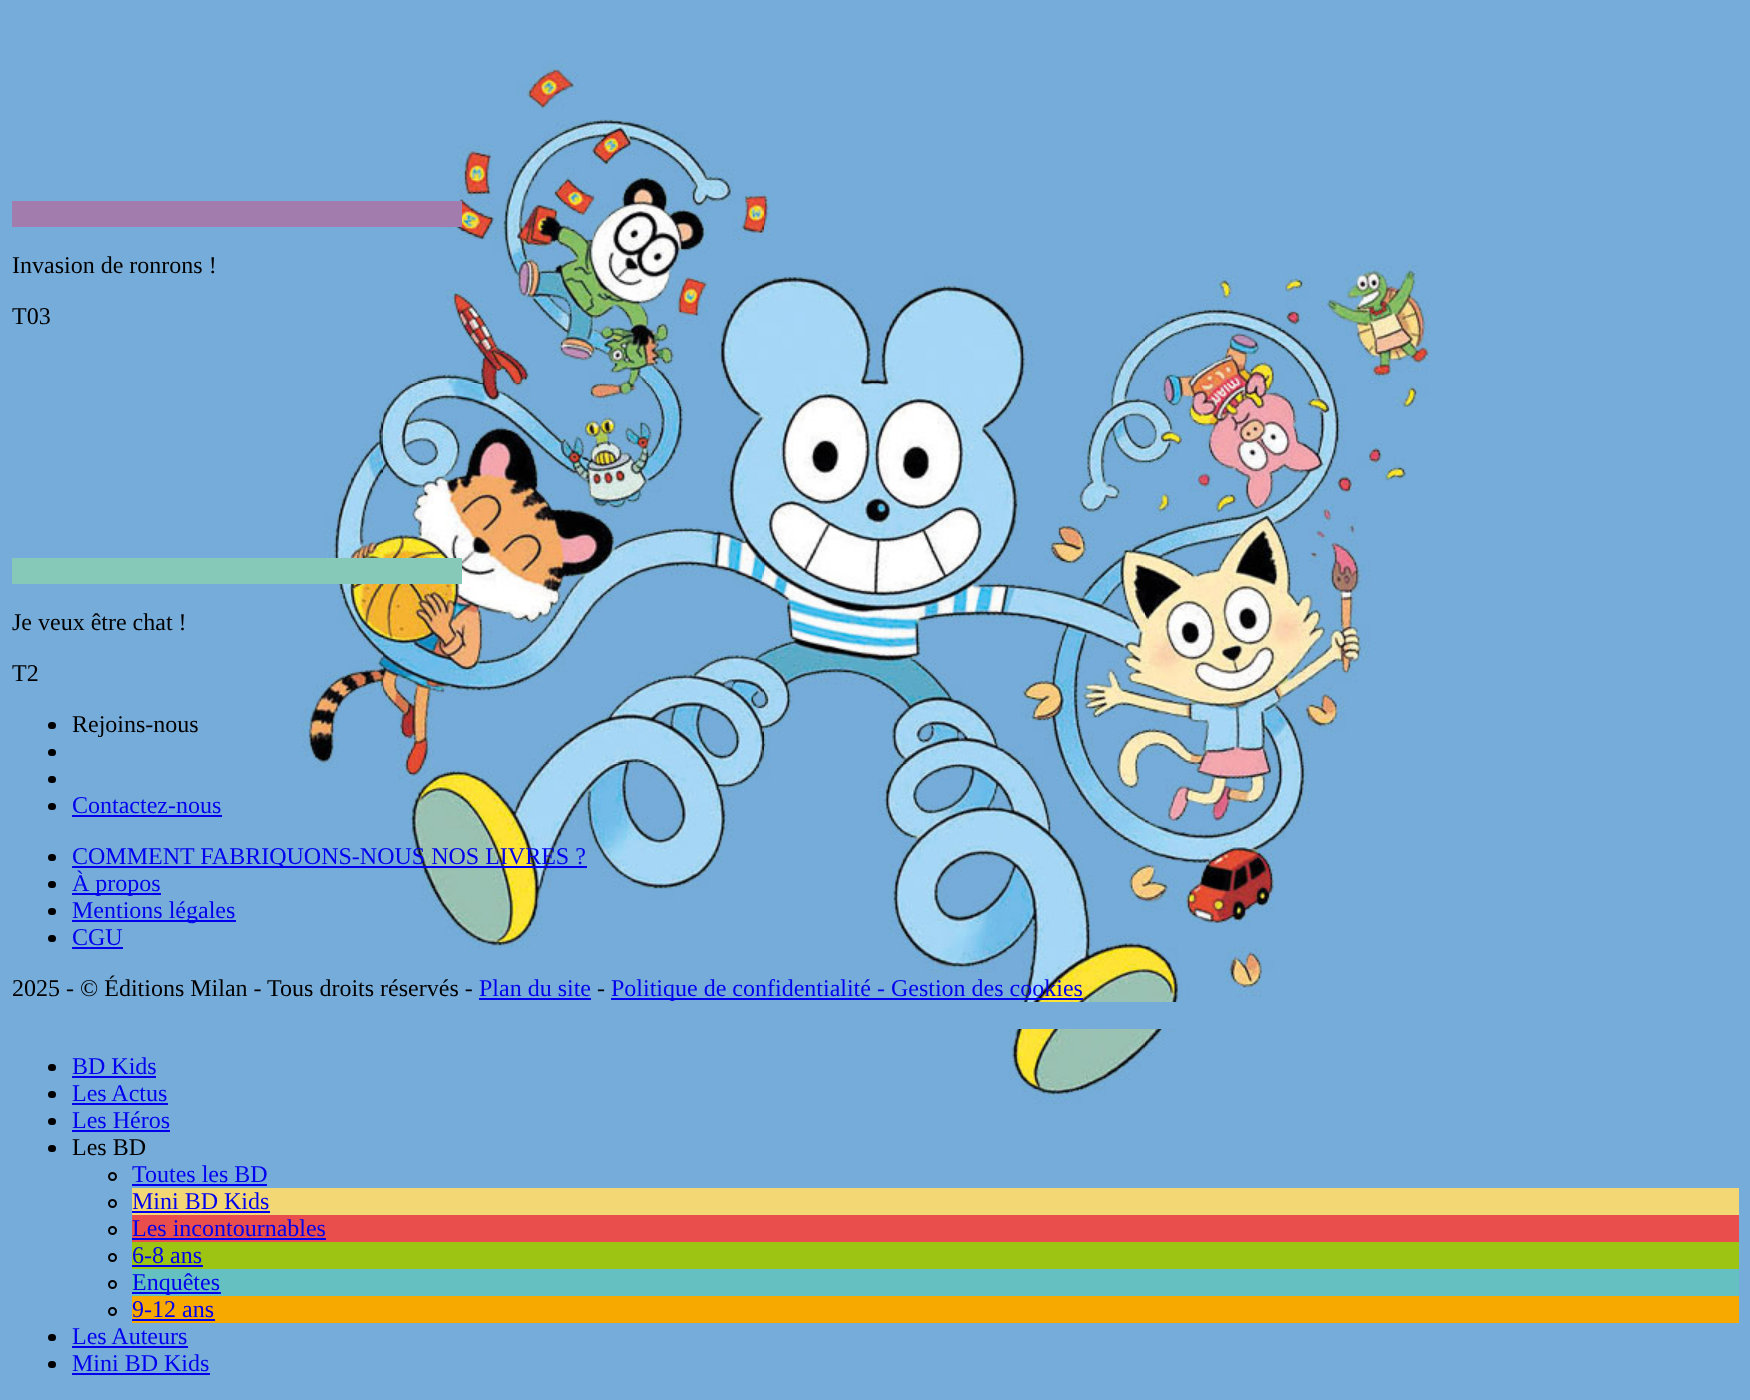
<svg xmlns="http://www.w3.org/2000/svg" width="1750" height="1400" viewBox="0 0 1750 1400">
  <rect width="100%" height="100%" fill="#76acda"/>
  <image x="301" y="60" width="1129" height="1044" href="img1.png"/>
  <rect x="12" y="201" width="450" height="26" fill="#a17cac"/>
  <text x="12" y="273" font-family="Liberation Serif" font-size="24" fill="#000000">Invasion de ronrons !</text>
  <text x="12" y="324" font-family="Liberation Serif" font-size="24" fill="#000000">T03</text>
  <rect x="12" y="558" width="450" height="26" fill="#87c9b8"/>
  <text x="12" y="630" font-family="Liberation Serif" font-size="24" fill="#000000">Je veux être chat !</text>
  <text x="12" y="681" font-family="Liberation Serif" font-size="24" fill="#000000">T2</text>
  <rect x="48" y="722" width="8" height="7" rx="3.5" fill="#000000"/>
  <text x="72" y="732" font-family="Liberation Serif" font-size="24" fill="#000000">Rejoins-nous</text>
  <rect x="48" y="749" width="8" height="7" rx="3.5" fill="#000000"/>
  <rect x="48" y="776" width="8" height="7" rx="3.5" fill="#000000"/>
  <rect x="48" y="803" width="8" height="7" rx="3.5" fill="#000000"/>
  <text x="72" y="813" font-family="Liberation Serif" font-size="24" fill="#0000ee">Contactez-nous</text>
  <rect x="72" y="815" width="150" height="2" fill="#0000ee"/>
  <rect x="48" y="854" width="8" height="7" rx="3.5" fill="#000000"/>
  <rect x="72" y="866" width="515" height="2" fill="#0000ee"/>
  <text x="72" y="864" font-family="Liberation Serif" font-size="24" fill="#0000ee">COMMENT FABRIQUONS-NOUS NOS LIVRES ?</text>
  <rect x="48" y="881" width="8" height="7" rx="3.5" fill="#000000"/>
  <rect x="72" y="893" width="89" height="2" fill="#0000ee"/>
  <text x="72" y="891" font-family="Liberation Serif" font-size="24" fill="#0000ee">À propos</text>
  <rect x="48" y="908" width="8" height="7" rx="3.5" fill="#000000"/>
  <rect x="72" y="920" width="164" height="2" fill="#0000ee"/>
  <text x="72" y="918" font-family="Liberation Serif" font-size="24" fill="#0000ee">Mentions légales</text>
  <rect x="48" y="935" width="8" height="7" rx="3.5" fill="#000000"/>
  <text x="72" y="945" font-family="Liberation Serif" font-size="24" fill="#0000ee">CGU</text>
  <rect x="72" y="947" width="51" height="2" fill="#0000ee"/>
  <text x="12" y="996" font-family="Liberation Serif" font-size="24" fill="#000000">2025 - © Éditions Milan - Tous droits réservés -</text>
  <text x="479" y="996" font-family="Liberation Serif" font-size="24" fill="#0000ee">Plan du site</text>
  <rect x="479" y="998" width="112" height="2" fill="#0000ee"/>
  <text x="597" y="996" font-family="Liberation Serif" font-size="24" fill="#000000">-</text>
  <rect x="611" y="998" width="472" height="2" fill="#0000ee"/>
  <text x="611" y="996" font-family="Liberation Serif" font-size="24" fill="#0000ee">Politique de confidentialité - Gestion des cookies</text>
  <rect x="1009" y="1002" width="169" height="27" fill="#76acda"/>
  <rect x="48" y="1064" width="8" height="7" rx="3.5" fill="#000000"/>
  <text x="72" y="1074" font-family="Liberation Serif" font-size="24" fill="#0000ee">BD Kids</text>
  <rect x="72" y="1076" width="84" height="2" fill="#0000ee"/>
  <rect x="48" y="1091" width="8" height="7" rx="3.5" fill="#000000"/>
  <text x="72" y="1101" font-family="Liberation Serif" font-size="24" fill="#0000ee">Les Actus</text>
  <rect x="72" y="1103" width="96" height="2" fill="#0000ee"/>
  <rect x="48" y="1118" width="8" height="7" rx="3.5" fill="#000000"/>
  <text x="72" y="1128" font-family="Liberation Serif" font-size="24" fill="#0000ee">Les Héros</text>
  <rect x="72" y="1130" width="98" height="2" fill="#0000ee"/>
  <rect x="48" y="1145" width="8" height="7" rx="3.5" fill="#000000"/>
  <text x="72" y="1155" font-family="Liberation Serif" font-size="24" fill="#000000">Les BD</text>
  <circle cx="112.5" cy="1176.5" r="3.5" fill="none" stroke="#000000" stroke-width="2"/>
  <text x="132" y="1182" font-family="Liberation Serif" font-size="24" fill="#0000ee">Toutes les BD</text>
  <rect x="132" y="1184" width="135" height="2" fill="#0000ee"/>
  <rect x="132" y="1188" width="1607" height="27" fill="#f3d774"/>
  <circle cx="112.5" cy="1203.5" r="3.5" fill="none" stroke="#000000" stroke-width="2"/>
  <text x="132" y="1209" font-family="Liberation Serif" font-size="24" fill="#0000ee">Mini BD Kids</text>
  <rect x="132" y="1211" width="138" height="2" fill="#0000ee"/>
  <rect x="132" y="1215" width="1607" height="27" fill="#e94e4c"/>
  <circle cx="112.5" cy="1230.5" r="3.5" fill="none" stroke="#000000" stroke-width="2"/>
  <text x="132" y="1236" font-family="Liberation Serif" font-size="24" fill="#0000ee">Les incontournables</text>
  <rect x="132" y="1238" width="194" height="2" fill="#0000ee"/>
  <rect x="132" y="1242" width="1607" height="27" fill="#9dc413"/>
  <circle cx="112.5" cy="1257.5" r="3.5" fill="none" stroke="#000000" stroke-width="2"/>
  <text x="132" y="1263" font-family="Liberation Serif" font-size="24" fill="#0000ee">6-8 ans</text>
  <rect x="132" y="1265" width="71" height="2" fill="#0000ee"/>
  <rect x="132" y="1269" width="1607" height="27" fill="#65c0c1"/>
  <circle cx="112.5" cy="1284.5" r="3.5" fill="none" stroke="#000000" stroke-width="2"/>
  <rect x="132" y="1292" width="89" height="2" fill="#0000ee"/>
  <text x="132" y="1290" font-family="Liberation Serif" font-size="24" fill="#0000ee">Enquêtes</text>
  <rect x="132" y="1296" width="1607" height="27" fill="#f7a900"/>
  <circle cx="112.5" cy="1311.5" r="3.5" fill="none" stroke="#000000" stroke-width="2"/>
  <text x="132" y="1317" font-family="Liberation Serif" font-size="24" fill="#0000ee">9-12 ans</text>
  <rect x="132" y="1319" width="83" height="2" fill="#0000ee"/>
  <rect x="48" y="1334" width="8" height="7" rx="3.5" fill="#000000"/>
  <text x="72" y="1344" font-family="Liberation Serif" font-size="24" fill="#0000ee">Les Auteurs</text>
  <rect x="72" y="1346" width="116" height="2" fill="#0000ee"/>
  <rect x="48" y="1361" width="8" height="7" rx="3.5" fill="#000000"/>
  <text x="72" y="1371" font-family="Liberation Serif" font-size="24" fill="#0000ee">Mini BD Kids</text>
  <rect x="72" y="1373" width="138" height="2" fill="#0000ee"/>
</svg>
